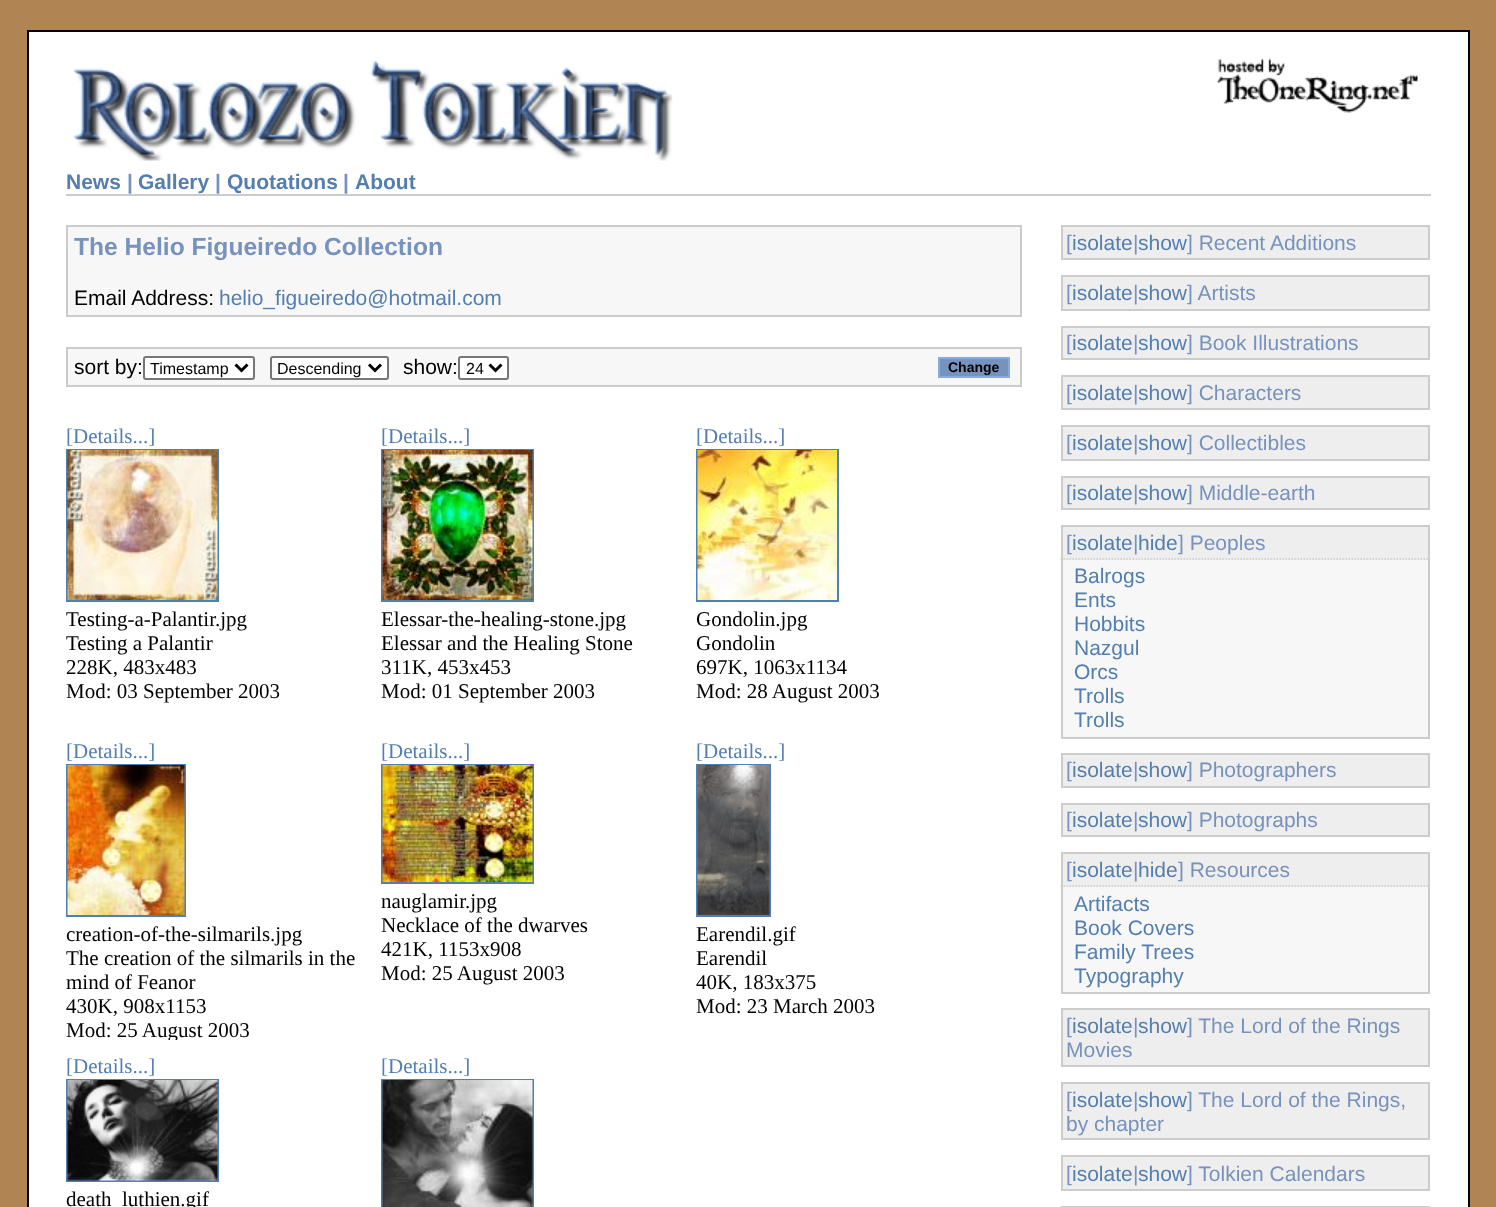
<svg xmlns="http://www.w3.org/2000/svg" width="1496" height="1207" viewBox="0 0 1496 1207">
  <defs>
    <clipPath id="clip1"><rect x="66" y="740" width="315" height="300"/></clipPath>
  </defs>
  <rect width="100%" height="100%" fill="#b08553"/>
  <rect x="28" y="31" width="1441" height="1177" fill="#ffffff" stroke="#000000" stroke-width="2"/>
  <image x="73" y="60" width="600" height="101" href="img1.png"/>
  <image x="1216" y="58" width="202" height="55" href="img2.png"/>
  <rect x="66" y="194" width="1365" height="2" fill="#cccccc"/>
  <text x="66" y="189" font-family="Liberation Sans" font-size="21" font-weight="bold" fill="#537eb0">News</text>
  <text x="127" y="189" font-family="Liberation Sans" font-size="21" font-weight="bold" fill="#7792bc">|</text>
  <text x="138" y="189" font-family="Liberation Sans" font-size="21" font-weight="bold" fill="#537eb0">Gallery</text>
  <text x="215" y="189" font-family="Liberation Sans" font-size="21" font-weight="bold" fill="#7792bc">|</text>
  <text x="227" y="189" font-family="Liberation Sans" font-size="21" font-weight="bold" fill="#537eb0">Quotations</text>
  <text x="343" y="189" font-family="Liberation Sans" font-size="21" font-weight="bold" fill="#7792bc">|</text>
  <text x="355" y="189" font-family="Liberation Sans" font-size="21" font-weight="bold" fill="#537eb0">About</text>
  <rect x="67" y="226" width="954" height="90" fill="#f7f7f7" stroke="#cccccc" stroke-width="2"/>
  <text x="74" y="255" font-family="Liberation Sans" font-size="24.6" font-weight="bold" fill="#7792bc">The Helio Figueiredo Collection</text>
  <text x="74" y="305" font-family="Liberation Sans" font-size="21" fill="#000000">Email Address:</text>
  <text x="219" y="305" font-family="Liberation Sans" font-size="21" fill="#537eb0">helio_figueiredo@hotmail.com</text>
  <rect x="67" y="348" width="954" height="38" fill="#f7f7f7" stroke="#cccccc" stroke-width="2"/>
  <text x="74" y="374" font-family="Liberation Sans" font-size="21" fill="#000000">sort by:</text>
  <rect x="144" y="357" width="110" height="22" rx="2" fill="#ffffff" stroke="#767676" stroke-width="2"/>
  <path d="M235.5 364.5L241.5 370.5L247.5 364.5" fill="none" stroke="#000000" stroke-width="3"/>
  <text x="150" y="374" font-family="Liberation Sans" font-size="16" fill="#000000">Timestamp</text>
  <rect x="271" y="357" width="117" height="22" rx="2" fill="#ffffff" stroke="#767676" stroke-width="2"/>
  <path d="M369 364.5L375 370.5L381 364.5" fill="none" stroke="#000000" stroke-width="3"/>
  <text x="277" y="374" font-family="Liberation Sans" font-size="16" fill="#000000">Descending</text>
  <text x="403" y="374" font-family="Liberation Sans" font-size="21" fill="#000000">show:</text>
  <rect x="459" y="357" width="49" height="22" rx="2" fill="#ffffff" stroke="#767676" stroke-width="2"/>
  <path d="M489.5 364.5L495.5 370.5L501.5 364.5" fill="none" stroke="#000000" stroke-width="3"/>
  <text x="466" y="374" font-family="Liberation Sans" font-size="16" fill="#000000">24</text>
  <rect x="939" y="358" width="70" height="19" fill="#7792bc" stroke="#88aadd" stroke-width="2"/>
  <text x="948" y="372" font-family="Liberation Sans" font-size="14" font-weight="bold" fill="#000000">Change</text>
  <text x="66" y="443" font-family="Liberation Serif" font-size="21" fill="#537eb0">[Details...]</text>
  <rect x="67" y="450" width="151" height="151" fill="none" stroke="#537eb0" stroke-width="2"/>
  <image x="67" y="450" width="151" height="150" href="img3.png"/>
  <text x="66" y="626" font-family="Liberation Serif" font-size="21" fill="#000000">Testing-a-Palantir.jpg</text>
  <text x="66" y="650" font-family="Liberation Serif" font-size="21" fill="#000000">Testing a Palantir</text>
  <text x="66" y="674" font-family="Liberation Serif" font-size="21" fill="#000000">228K, 483x483</text>
  <text x="66" y="698" font-family="Liberation Serif" font-size="21" fill="#000000">Mod: 03 September 2003</text>
  <text x="381" y="443" font-family="Liberation Serif" font-size="21" fill="#537eb0">[Details...]</text>
  <rect x="382" y="450" width="151" height="151" fill="none" stroke="#537eb0" stroke-width="2"/>
  <image x="382" y="450" width="151" height="150" href="img4.png"/>
  <text x="381" y="626" font-family="Liberation Serif" font-size="21" fill="#000000">Elessar-the-healing-stone.jpg</text>
  <text x="381" y="650" font-family="Liberation Serif" font-size="21" fill="#000000">Elessar and the Healing Stone</text>
  <text x="381" y="674" font-family="Liberation Serif" font-size="21" fill="#000000">311K, 453x453</text>
  <text x="381" y="698" font-family="Liberation Serif" font-size="21" fill="#000000">Mod: 01 September 2003</text>
  <text x="696" y="443" font-family="Liberation Serif" font-size="21" fill="#537eb0">[Details...]</text>
  <rect x="697" y="450" width="141" height="151" fill="none" stroke="#537eb0" stroke-width="2"/>
  <image x="697" y="450" width="140" height="150" href="img5.png"/>
  <text x="696" y="626" font-family="Liberation Serif" font-size="21" fill="#000000">Gondolin.jpg</text>
  <text x="696" y="650" font-family="Liberation Serif" font-size="21" fill="#000000">Gondolin</text>
  <text x="696" y="674" font-family="Liberation Serif" font-size="21" fill="#000000">697K, 1063x1134</text>
  <text x="696" y="698" font-family="Liberation Serif" font-size="21" fill="#000000">Mod: 28 August 2003</text>
  <text x="66" y="758" font-family="Liberation Serif" font-size="21" fill="#537eb0">[Details...]</text>
  <rect x="67" y="765" width="118" height="151" fill="none" stroke="#537eb0" stroke-width="2"/>
  <image x="67" y="765" width="118" height="150" href="img6.png"/>
  <text x="66" y="941" font-family="Liberation Serif" font-size="21" fill="#000000">creation-of-the-silmarils.jpg</text>
  <text x="66" y="965" font-family="Liberation Serif" font-size="21" fill="#000000">The creation of the silmarils in the</text>
  <text x="66" y="989" font-family="Liberation Serif" font-size="21" fill="#000000">mind of Feanor</text>
  <text x="66" y="1013" font-family="Liberation Serif" font-size="21" fill="#000000">430K, 908x1153</text>
  <g clip-path="url(#clip1)">
    <text x="66" y="1037" font-family="Liberation Serif" font-size="21" fill="#000000">Mod: 25 August 2003</text>
  </g>
  <text x="381" y="758" font-family="Liberation Serif" font-size="21" fill="#537eb0">[Details...]</text>
  <rect x="382" y="765" width="151" height="118" fill="none" stroke="#537eb0" stroke-width="2"/>
  <image x="382" y="765" width="151" height="117" href="img7.png"/>
  <text x="381" y="908" font-family="Liberation Serif" font-size="21" fill="#000000">nauglamir.jpg</text>
  <text x="381" y="932" font-family="Liberation Serif" font-size="21" fill="#000000">Necklace of the dwarves</text>
  <text x="381" y="956" font-family="Liberation Serif" font-size="21" fill="#000000">421K, 1153x908</text>
  <text x="381" y="980" font-family="Liberation Serif" font-size="21" fill="#000000">Mod: 25 August 2003</text>
  <text x="696" y="758" font-family="Liberation Serif" font-size="21" fill="#537eb0">[Details...]</text>
  <rect x="697" y="765" width="73" height="151" fill="none" stroke="#537eb0" stroke-width="2"/>
  <image x="697" y="765" width="73" height="150" href="img8.png"/>
  <text x="696" y="941" font-family="Liberation Serif" font-size="21" fill="#000000">Earendil.gif</text>
  <text x="696" y="965" font-family="Liberation Serif" font-size="21" fill="#000000">Earendil</text>
  <text x="696" y="989" font-family="Liberation Serif" font-size="21" fill="#000000">40K, 183x375</text>
  <text x="696" y="1013" font-family="Liberation Serif" font-size="21" fill="#000000">Mod: 23 March 2003</text>
  <text x="66" y="1073" font-family="Liberation Serif" font-size="21" fill="#537eb0">[Details...]</text>
  <rect x="67" y="1080" width="151" height="101" fill="none" stroke="#537eb0" stroke-width="2"/>
  <image x="67" y="1080" width="151" height="101" href="img9.png"/>
  <text x="66" y="1206" font-family="Liberation Serif" font-size="21" fill="#000000">death_luthien.gif</text>
  <text x="381" y="1073" font-family="Liberation Serif" font-size="21" fill="#537eb0">[Details...]</text>
  <rect x="382" y="1080" width="151" height="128" fill="none" stroke="#537eb0" stroke-width="2"/>
  <image x="382" y="1080" width="151" height="127" href="img10.png"/>
  <rect x="1062" y="226" width="367" height="33" fill="#eeeeee" stroke="#cccccc" stroke-width="2"/>
  <text x="1066" y="250" font-family="Liberation Sans" font-size="21" fill="#7792bc">[</text>
  <text x="1072" y="250" font-family="Liberation Sans" font-size="21" fill="#537eb0">isolate</text>
  <text x="1133" y="250" font-family="Liberation Sans" font-size="21" fill="#7792bc">|</text>
  <text x="1138" y="250" font-family="Liberation Sans" font-size="21" fill="#537eb0">show</text>
  <text x="1187" y="250" font-family="Liberation Sans" font-size="21" fill="#7792bc">] Recent Additions</text>
  <rect x="1062" y="276" width="367" height="34" fill="#eeeeee" stroke="#cccccc" stroke-width="2"/>
  <text x="1066" y="300" font-family="Liberation Sans" font-size="21" fill="#7792bc">[</text>
  <text x="1072" y="300" font-family="Liberation Sans" font-size="21" fill="#537eb0">isolate</text>
  <text x="1133" y="300" font-family="Liberation Sans" font-size="21" fill="#7792bc">|</text>
  <text x="1138" y="300" font-family="Liberation Sans" font-size="21" fill="#537eb0">show</text>
  <text x="1187" y="300" font-family="Liberation Sans" font-size="21" fill="#7792bc">] Artists</text>
  <rect x="1062" y="327" width="367" height="32" fill="#eeeeee" stroke="#cccccc" stroke-width="2"/>
  <text x="1066" y="350" font-family="Liberation Sans" font-size="21" fill="#7792bc">[</text>
  <text x="1072" y="350" font-family="Liberation Sans" font-size="21" fill="#537eb0">isolate</text>
  <text x="1133" y="350" font-family="Liberation Sans" font-size="21" fill="#7792bc">|</text>
  <text x="1138" y="350" font-family="Liberation Sans" font-size="21" fill="#537eb0">show</text>
  <text x="1187" y="350" font-family="Liberation Sans" font-size="21" fill="#7792bc">] Book Illustrations</text>
  <rect x="1062" y="376" width="367" height="33" fill="#eeeeee" stroke="#cccccc" stroke-width="2"/>
  <text x="1066" y="400" font-family="Liberation Sans" font-size="21" fill="#7792bc">[</text>
  <text x="1072" y="400" font-family="Liberation Sans" font-size="21" fill="#537eb0">isolate</text>
  <text x="1133" y="400" font-family="Liberation Sans" font-size="21" fill="#7792bc">|</text>
  <text x="1138" y="400" font-family="Liberation Sans" font-size="21" fill="#537eb0">show</text>
  <text x="1187" y="400" font-family="Liberation Sans" font-size="21" fill="#7792bc">] Characters</text>
  <rect x="1062" y="426" width="367" height="34" fill="#eeeeee" stroke="#cccccc" stroke-width="2"/>
  <text x="1066" y="450" font-family="Liberation Sans" font-size="21" fill="#7792bc">[</text>
  <text x="1072" y="450" font-family="Liberation Sans" font-size="21" fill="#537eb0">isolate</text>
  <text x="1133" y="450" font-family="Liberation Sans" font-size="21" fill="#7792bc">|</text>
  <text x="1138" y="450" font-family="Liberation Sans" font-size="21" fill="#537eb0">show</text>
  <text x="1187" y="450" font-family="Liberation Sans" font-size="21" fill="#7792bc">] Collectibles</text>
  <rect x="1062" y="477" width="367" height="32" fill="#eeeeee" stroke="#cccccc" stroke-width="2"/>
  <text x="1066" y="500" font-family="Liberation Sans" font-size="21" fill="#7792bc">[</text>
  <text x="1072" y="500" font-family="Liberation Sans" font-size="21" fill="#537eb0">isolate</text>
  <text x="1133" y="500" font-family="Liberation Sans" font-size="21" fill="#7792bc">|</text>
  <text x="1138" y="500" font-family="Liberation Sans" font-size="21" fill="#537eb0">show</text>
  <text x="1187" y="500" font-family="Liberation Sans" font-size="21" fill="#7792bc">] Middle-earth</text>
  <rect x="1063" y="527" width="365" height="33" fill="#eeeeee"/>
  <rect x="1061" y="525" width="369" height="2" fill="#cccccc"/>
  <rect x="1428" y="525" width="2" height="213" fill="#cccccc"/>
  <path d="M1060.5 559H1429.5" fill="none" stroke="#cccccc" stroke-width="1.5" stroke-dasharray="1.5 1.5"/>
  <rect x="1061" y="525" width="2" height="35" fill="#cccccc"/>
  <text x="1066" y="550" font-family="Liberation Sans" font-size="21" fill="#7792bc">[</text>
  <text x="1072" y="550" font-family="Liberation Sans" font-size="21" fill="#537eb0">isolate</text>
  <text x="1133" y="550" font-family="Liberation Sans" font-size="21" fill="#7792bc">|</text>
  <text x="1138" y="550" font-family="Liberation Sans" font-size="21" fill="#537eb0">hide</text>
  <text x="1178" y="550" font-family="Liberation Sans" font-size="21" fill="#7792bc">] Peoples</text>
  <rect x="1063" y="560" width="365" height="177" fill="#f7f7f7"/>
  <rect x="1061" y="737" width="369" height="2" fill="#cccccc"/>
  <rect x="1061" y="560" width="2" height="178" fill="#cccccc"/>
  <text x="1074" y="583" font-family="Liberation Sans" font-size="21" fill="#537eb0">Balrogs</text>
  <text x="1074" y="607" font-family="Liberation Sans" font-size="21" fill="#537eb0">Ents</text>
  <text x="1074" y="631" font-family="Liberation Sans" font-size="21" fill="#537eb0">Hobbits</text>
  <text x="1074" y="655" font-family="Liberation Sans" font-size="21" fill="#537eb0">Nazgul</text>
  <text x="1074" y="679" font-family="Liberation Sans" font-size="21" fill="#537eb0">Orcs</text>
  <text x="1074" y="703" font-family="Liberation Sans" font-size="21" fill="#537eb0">Trolls</text>
  <text x="1074" y="727" font-family="Liberation Sans" font-size="21" fill="#537eb0">Trolls</text>
  <rect x="1062" y="754" width="367" height="33" fill="#eeeeee" stroke="#cccccc" stroke-width="2"/>
  <text x="1066" y="777" font-family="Liberation Sans" font-size="21" fill="#7792bc">[</text>
  <text x="1072" y="777" font-family="Liberation Sans" font-size="21" fill="#537eb0">isolate</text>
  <text x="1133" y="777" font-family="Liberation Sans" font-size="21" fill="#7792bc">|</text>
  <text x="1138" y="777" font-family="Liberation Sans" font-size="21" fill="#537eb0">show</text>
  <text x="1187" y="777" font-family="Liberation Sans" font-size="21" fill="#7792bc">] Photographers</text>
  <rect x="1062" y="804" width="367" height="32" fill="#eeeeee" stroke="#cccccc" stroke-width="2"/>
  <text x="1066" y="827" font-family="Liberation Sans" font-size="21" fill="#7792bc">[</text>
  <text x="1072" y="827" font-family="Liberation Sans" font-size="21" fill="#537eb0">isolate</text>
  <text x="1133" y="827" font-family="Liberation Sans" font-size="21" fill="#7792bc">|</text>
  <text x="1138" y="827" font-family="Liberation Sans" font-size="21" fill="#537eb0">show</text>
  <text x="1187" y="827" font-family="Liberation Sans" font-size="21" fill="#7792bc">] Photographs</text>
  <rect x="1063" y="854" width="365" height="33" fill="#eeeeee"/>
  <rect x="1061" y="852" width="369" height="2" fill="#cccccc"/>
  <rect x="1428" y="852" width="2" height="141" fill="#cccccc"/>
  <path d="M1060.5 886H1429.5" fill="none" stroke="#cccccc" stroke-width="1.5" stroke-dasharray="1.5 1.5"/>
  <rect x="1061" y="852" width="2" height="35" fill="#cccccc"/>
  <text x="1066" y="877" font-family="Liberation Sans" font-size="21" fill="#7792bc">[</text>
  <text x="1072" y="877" font-family="Liberation Sans" font-size="21" fill="#537eb0">isolate</text>
  <text x="1133" y="877" font-family="Liberation Sans" font-size="21" fill="#7792bc">|</text>
  <text x="1138" y="877" font-family="Liberation Sans" font-size="21" fill="#537eb0">hide</text>
  <text x="1178" y="877" font-family="Liberation Sans" font-size="21" fill="#7792bc">] Resources</text>
  <rect x="1063" y="887" width="365" height="105" fill="#f7f7f7"/>
  <rect x="1061" y="992" width="369" height="2" fill="#cccccc"/>
  <rect x="1061" y="887" width="2" height="106" fill="#cccccc"/>
  <text x="1074" y="911" font-family="Liberation Sans" font-size="21" fill="#537eb0">Artifacts</text>
  <text x="1074" y="935" font-family="Liberation Sans" font-size="21" fill="#537eb0">Book Covers</text>
  <text x="1074" y="959" font-family="Liberation Sans" font-size="21" fill="#537eb0">Family Trees</text>
  <text x="1074" y="983" font-family="Liberation Sans" font-size="21" fill="#537eb0">Typography</text>
  <rect x="1062" y="1009" width="367" height="57" fill="#eeeeee" stroke="#cccccc" stroke-width="2"/>
  <text x="1066" y="1033" font-family="Liberation Sans" font-size="21" fill="#7792bc">[</text>
  <text x="1072" y="1033" font-family="Liberation Sans" font-size="21" fill="#537eb0">isolate</text>
  <text x="1133" y="1033" font-family="Liberation Sans" font-size="21" fill="#7792bc">|</text>
  <text x="1138" y="1033" font-family="Liberation Sans" font-size="21" fill="#537eb0">show</text>
  <text x="1187" y="1033" font-family="Liberation Sans" font-size="21" fill="#7792bc">] The Lord of the Rings</text>
  <text x="1066" y="1057" font-family="Liberation Sans" font-size="21" fill="#7792bc">Movies</text>
  <rect x="1062" y="1083" width="367" height="56" fill="#eeeeee" stroke="#cccccc" stroke-width="2"/>
  <text x="1066" y="1107" font-family="Liberation Sans" font-size="21" fill="#7792bc">[</text>
  <text x="1072" y="1107" font-family="Liberation Sans" font-size="21" fill="#537eb0">isolate</text>
  <text x="1133" y="1107" font-family="Liberation Sans" font-size="21" fill="#7792bc">|</text>
  <text x="1138" y="1107" font-family="Liberation Sans" font-size="21" fill="#537eb0">show</text>
  <text x="1187" y="1107" font-family="Liberation Sans" font-size="21" fill="#7792bc">] The Lord of the Rings,</text>
  <text x="1066" y="1131" font-family="Liberation Sans" font-size="21" fill="#7792bc">by chapter</text>
  <rect x="1062" y="1156" width="367" height="34" fill="#eeeeee" stroke="#cccccc" stroke-width="2"/>
  <text x="1066" y="1181" font-family="Liberation Sans" font-size="21" fill="#7792bc">[</text>
  <text x="1072" y="1181" font-family="Liberation Sans" font-size="21" fill="#537eb0">isolate</text>
  <text x="1133" y="1181" font-family="Liberation Sans" font-size="21" fill="#7792bc">|</text>
  <text x="1138" y="1181" font-family="Liberation Sans" font-size="21" fill="#537eb0">show</text>
  <text x="1187" y="1181" font-family="Liberation Sans" font-size="21" fill="#7792bc">] Tolkien Calendars</text>
  <rect x="1062" y="1207" width="367" height="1" fill="none" stroke="#cccccc" stroke-width="2"/>
</svg>
